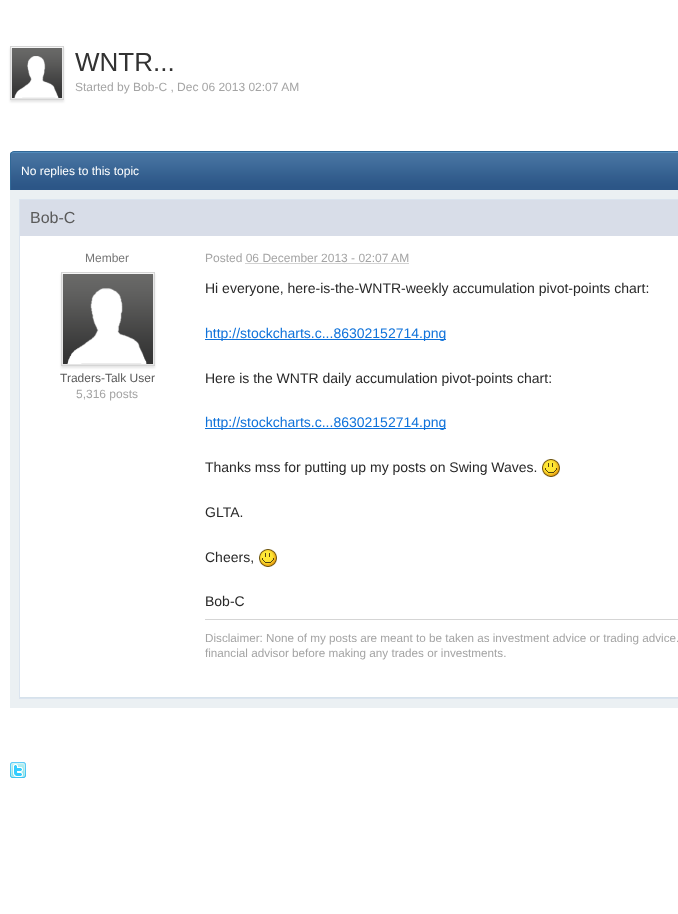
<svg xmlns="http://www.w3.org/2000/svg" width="678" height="914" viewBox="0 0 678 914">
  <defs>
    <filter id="blur1" x="-50%" y="-200%" width="200%" height="500%"><feGaussianBlur stdDeviation="1"/></filter>
  </defs>
  <rect width="100%" height="100%" fill="#ffffff"/>
  <rect x="10" y="48" width="54" height="54" fill="#000000" fill-opacity="0.1" filter="url(#blur1)"/>
  <rect x="10.5" y="46.5" width="53" height="53" fill="none" stroke="#d5d5d5"/>
  <image x="12" y="48" width="50" height="50" href="img1.png"/>
  <text x="75" y="71" font-family="Liberation Sans" font-size="26" fill="#323232">WNTR...</text>
  <text x="75" y="91" font-family="Liberation Sans" font-size="12" fill="#a4a4a4">Started by Bob-C , Dec 06 2013 02:07 AM</text>
  <rect x="11" y="187" width="667" height="3" fill="#2c5687"/>
  <image x="10" y="152" width="668" height="35" href="img2.png"/>
  <path d="M14 153H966C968 153 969 154 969 156C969 154 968 152 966 152H14C12 152 11 154 11 156C11 154 12 153 14 153Z" fill="#528cbc"/>
  <path d="M14 151H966C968 151 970 153 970 155V190H10V155C10 153 12 151 14 151ZM14 152H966C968 152 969 153 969 155V190H11V155C11 153 12 152 14 152Z" fill="#316897" fill-rule="evenodd"/>
  <text x="21" y="175" font-family="Liberation Sans" font-size="12" fill="#ffffff">No replies to this topic</text>
  <rect x="10" y="190" width="668" height="518" fill="#ebf0f3"/>
  <rect x="20" y="236" width="658" height="461" fill="#ffffff"/>
  <rect x="19.5" y="199.5" width="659" height="499" fill="none" stroke="#dbe4ef"/>
  <rect x="20" y="697" width="658" height="1" fill="#d6e2eb"/>
  <rect x="20" y="200" width="658" height="36" fill="#d8dde8"/>
  <text x="30" y="223" font-family="Liberation Sans" font-size="16" fill="#5a5a5a">Bob-C</text>
  <text x="85" y="262" font-family="Liberation Sans" font-size="12" fill="#777777">Member</text>
  <rect x="61" y="274" width="94" height="94" fill="#000000" fill-opacity="0.1" filter="url(#blur1)"/>
  <rect x="61.5" y="272.5" width="93" height="93" fill="none" stroke="#d5d5d5"/>
  <image x="63" y="274" width="90" height="90" href="img3.png"/>
  <text x="60" y="382" font-family="Liberation Sans" font-size="12" fill="#5a5a5a">Traders-Talk User</text>
  <text x="76" y="398" font-family="Liberation Sans" font-size="12" fill="#a4a4a4">5,316 posts</text>
  <text x="205" y="262" font-family="Liberation Sans" font-size="12" fill="#a4a4a4">Posted 06 December 2013 - 02:07 AM</text>
  <path d="M245.5 263.5H409" fill="none" stroke="#a4a4a4" stroke-dasharray="1 1"/>
  <text x="205" y="293" font-family="Liberation Sans" font-size="14" fill="#282828">Hi everyone, here-is-the-WNTR-weekly accumulation pivot-points chart:</text>
  <rect x="205" y="339" width="241" height="1" fill="#0f72da"/>
  <text x="205" y="338" font-family="Liberation Sans" font-size="14" fill="#0f72da">http://stockcharts.c...86302152714.png</text>
  <text x="205" y="383" font-family="Liberation Sans" font-size="14" fill="#282828">Here is the WNTR daily accumulation pivot-points chart:</text>
  <rect x="205" y="428" width="241" height="1" fill="#0f72da"/>
  <text x="205" y="427" font-family="Liberation Sans" font-size="14" fill="#0f72da">http://stockcharts.c...86302152714.png</text>
  <text x="205" y="472" font-family="Liberation Sans" font-size="14" fill="#282828">Thanks mss for putting up my posts on Swing Waves.</text>
  <image x="542" y="459" width="18" height="18" href="img4.png"/>
  <text x="205" y="517" font-family="Liberation Sans" font-size="14" fill="#282828">GLTA.</text>
  <text x="205" y="562" font-family="Liberation Sans" font-size="14" fill="#282828">Cheers,</text>
  <image x="259" y="549" width="18" height="18" href="img4.png"/>
  <text x="205" y="606" font-family="Liberation Sans" font-size="14" fill="#282828">Bob-C</text>
  <rect x="205" y="619" width="473" height="1" fill="#d5d5d5"/>
  <text x="205" y="642" font-family="Liberation Sans" font-size="11.7" fill="#a4a4a4">Disclaimer: None of my posts are meant to be taken as investment advice or trading advice.</text>
  <text x="205" y="657" font-family="Liberation Sans" font-size="11.7" fill="#a4a4a4">financial advisor before making any trades or investments.</text>
  <image x="10" y="762" width="16" height="16" href="img5.png"/>
</svg>
